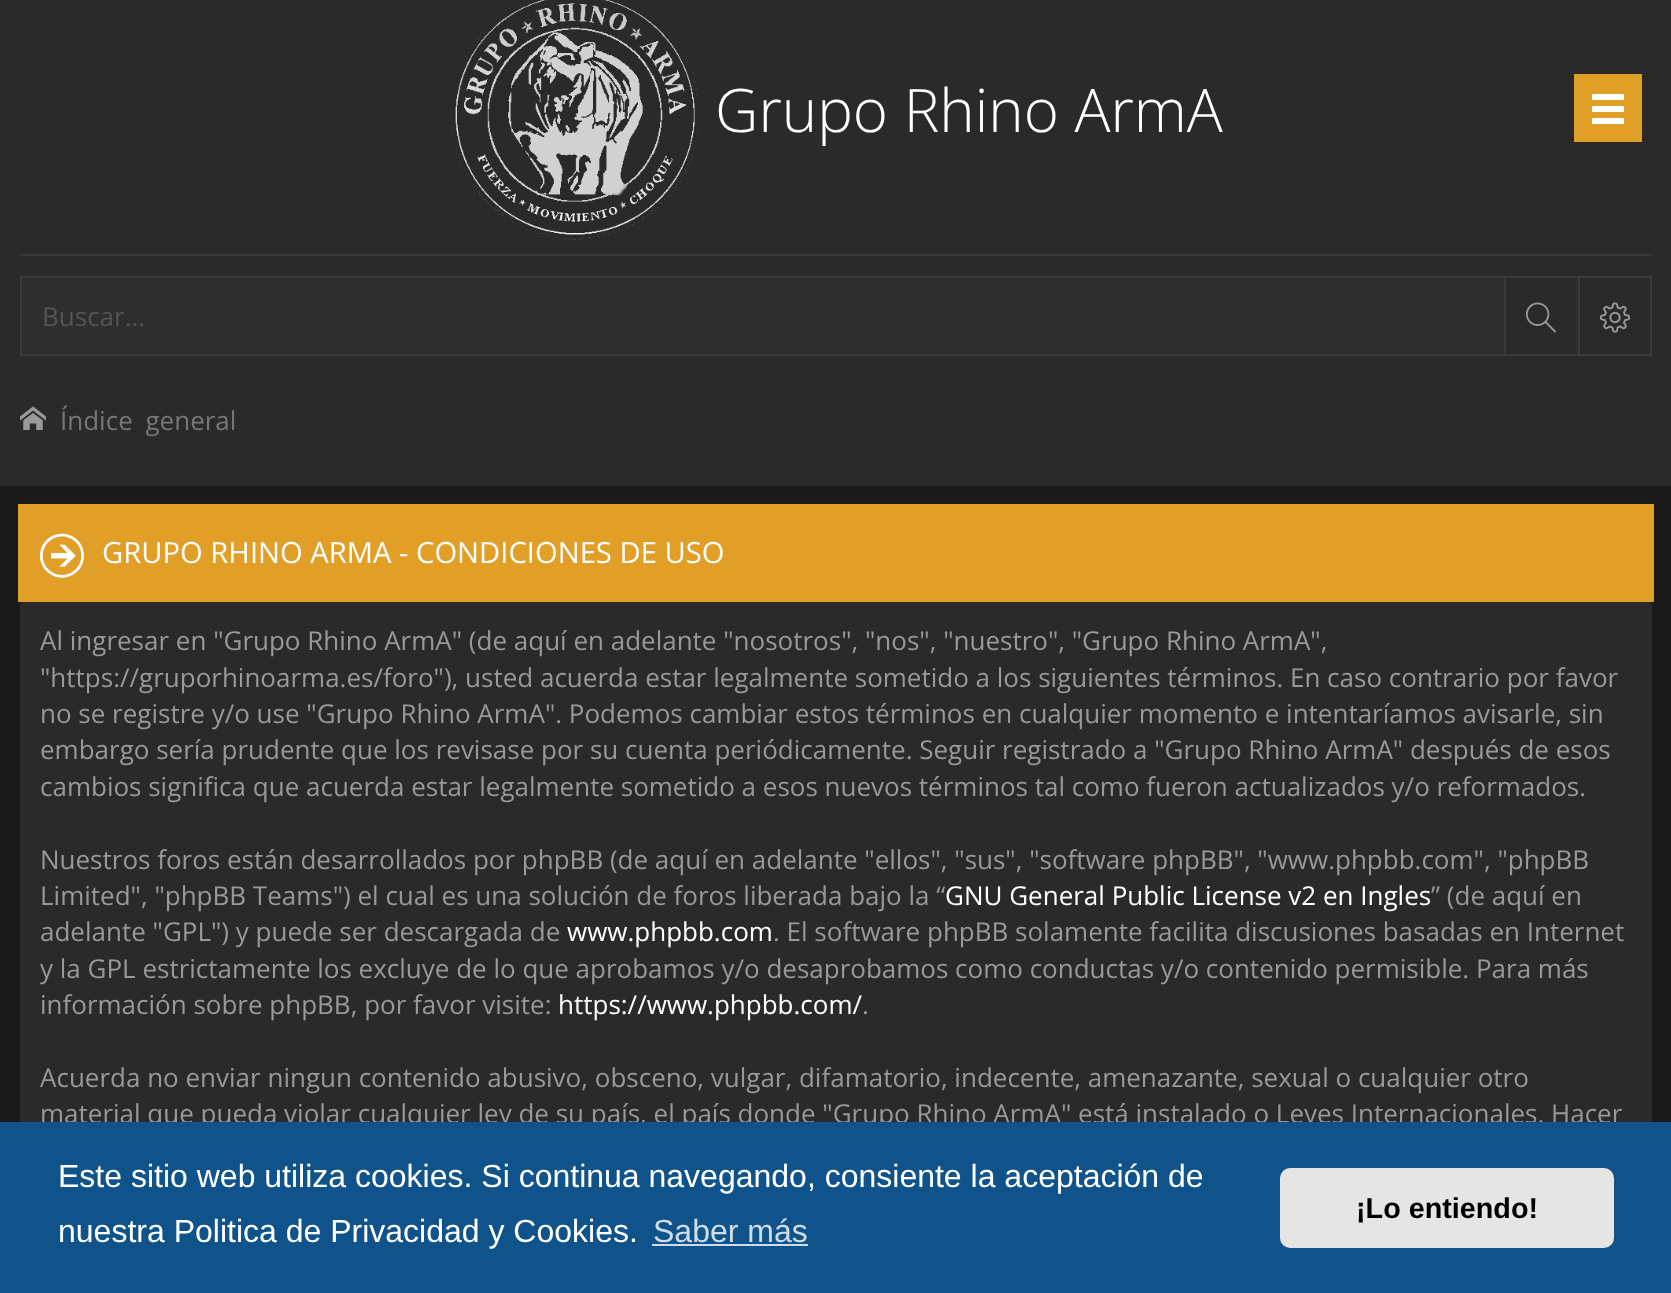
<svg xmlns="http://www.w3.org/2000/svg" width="1671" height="1293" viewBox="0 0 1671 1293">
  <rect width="100%" height="100%" fill="#191919"/>
  <rect x="0" y="0" width="1671" height="486" fill="#2a2a2a"/>
  <image x="450" y="0" width="250" height="240" href="img1.png"/>
  <text x="715" y="132" font-family="Open Sans" font-size="60" font-weight="300" fill="#ffffff">Grupo Rhino ArmA</text>
  <rect x="1574" y="74" width="68" height="68" fill="#e19f28"/>
  <rect x="1592" y="94" width="32" height="6" fill="#ffffff"/>
  <rect x="1592" y="106" width="32" height="6" fill="#ffffff"/>
  <rect x="1592" y="118" width="32" height="6" fill="#ffffff"/>
  <rect x="20" y="254" width="1632" height="2" fill="#3a3a3a"/>
  <rect x="22" y="278" width="1556" height="76" fill="#2e2e2e"/>
  <rect x="21" y="277" width="1630" height="78" fill="none" stroke="#3a3a3a" stroke-width="2"/>
  <text x="42" y="326" font-family="Open Sans" font-size="26" fill="#555555">Buscar…</text>
  <rect x="1506" y="278" width="70" height="76" fill="#2a2a2a"/>
  <rect x="1504" y="278" width="2" height="76" fill="#3a3a3a"/>
  <image x="1525" y="302" width="31" height="31" href="img2.png"/>
  <rect x="1578" y="278" width="2" height="76" fill="#3a3a3a"/>
  <image x="1600" y="302" width="30" height="31" href="img3.png"/>
  <image x="20" y="406" width="26" height="24" href="img4.png"/>
  <text x="60" y="430" word-spacing="6" font-family="Open Sans" font-size="26" fill="#777777">Índice general</text>
  <rect x="20" y="602" width="1632" height="520" fill="#2a2a2a"/>
  <rect x="18" y="504" width="1636" height="98" fill="#e19f28"/>
  <image x="40" y="533" width="44" height="45" href="img5.png"/>
  <text x="102" y="563" font-family="Open Sans" font-size="29.2" fill="#ffffff">GRUPO RHINO ARMA - CONDICIONES DE USO</text>
  <text x="40" y="650" font-family="Open Sans" font-size="26" fill="#999999">Al ingresar en "Grupo Rhino ArmA" (de aquí en adelante "nosotros", "nos", "nuestro", "Grupo Rhino ArmA",</text>
  <text x="40" y="687" font-family="Open Sans" font-size="26" fill="#999999">"https://gruporhinoarma.es/foro"), usted acuerda estar legalmente sometido a los siguientes términos. En caso contrario por favor</text>
  <text x="40" y="723" font-family="Open Sans" font-size="26" fill="#999999">no se registre y/o use "Grupo Rhino ArmA". Podemos cambiar estos términos en cualquier momento e intentaríamos avisarle, sin</text>
  <text x="40" y="759" font-family="Open Sans" font-size="26" fill="#999999">embargo sería prudente que los revisase por su cuenta periódicamente. Seguir registrado a "Grupo Rhino ArmA" después de esos</text>
  <text x="40" y="796" font-family="Open Sans" font-size="26" fill="#999999">cambios significa que acuerda estar legalmente sometido a esos nuevos términos tal como fueron actualizados y/o reformados.</text>
  <text x="40" y="869" font-family="Open Sans" font-size="26" fill="#999999">Nuestros foros están desarrollados por phpBB (de aquí en adelante "ellos", "sus", "software phpBB", "www.phpbb.com", "phpBB</text>
  <text x="40" y="905" font-family="Open Sans" font-size="26" fill="#999999">Limited", "phpBB Teams") el cual es una solución de foros liberada bajo la “</text>
  <text x="945" y="905" font-family="Open Sans" font-size="26" fill="#ffffff">GNU General Public License v2 en Ingles</text>
  <text x="1431" y="905" font-family="Open Sans" font-size="26" fill="#999999">” (de aquí en</text>
  <text x="40" y="941" font-family="Open Sans" font-size="26" fill="#999999">adelante "GPL") y puede ser descargada de</text>
  <text x="567" y="941" font-family="Open Sans" font-size="26" fill="#ffffff">www.phpbb.com</text>
  <text x="773" y="941" font-family="Open Sans" font-size="26" fill="#999999">. El software phpBB solamente facilita discusiones basadas en Internet</text>
  <text x="40" y="978" font-family="Open Sans" font-size="26" fill="#999999">y la GPL estrictamente los excluye de lo que aprobamos y/o desaprobamos como conductas y/o contenido permisible. Para más</text>
  <text x="40" y="1014" font-family="Open Sans" font-size="26" fill="#999999">información sobre phpBB, por favor visite:</text>
  <text x="558" y="1014" font-family="Open Sans" font-size="26" fill="#ffffff">https://www.phpbb.com/</text>
  <text x="862" y="1014" font-family="Open Sans" font-size="26" fill="#999999">.</text>
  <text x="40" y="1087" font-family="Open Sans" font-size="26" fill="#999999">Acuerda no enviar ningun contenido abusivo, obsceno, vulgar, difamatorio, indecente, amenazante, sexual o cualquier otro</text>
  <text x="40" y="1123" font-family="Open Sans" font-size="26" fill="#999999">material que pueda violar cualquier ley de su país, el país donde "Grupo Rhino ArmA" está instalado o Leyes Internacionales. Hacer</text>
  <rect x="0" y="1122" width="1671" height="171" fill="#0f538a"/>
  <text x="58" y="1187" font-family="Liberation Sans" font-size="32" fill="#ffffff">Este sitio web utiliza cookies. Si continua navegando, consiente la aceptación de</text>
  <text x="58" y="1242" font-family="Liberation Sans" font-size="32" fill="#ffffff">nuestra Politica de Privacidad y Cookies.</text>
  <text x="653" y="1242" font-family="Liberation Sans" font-size="32" fill="#cfdde8">Saber más</text>
  <rect x="652" y="1244" width="156" height="2" fill="#cfdde8"/>
  <rect x="1280" y="1168" width="334" height="80" rx="10" fill="#e5e5e5"/>
  <text x="1356" y="1218" font-family="Liberation Sans" font-size="28.75" font-weight="bold" fill="#000000">¡Lo entiendo!</text>
</svg>
